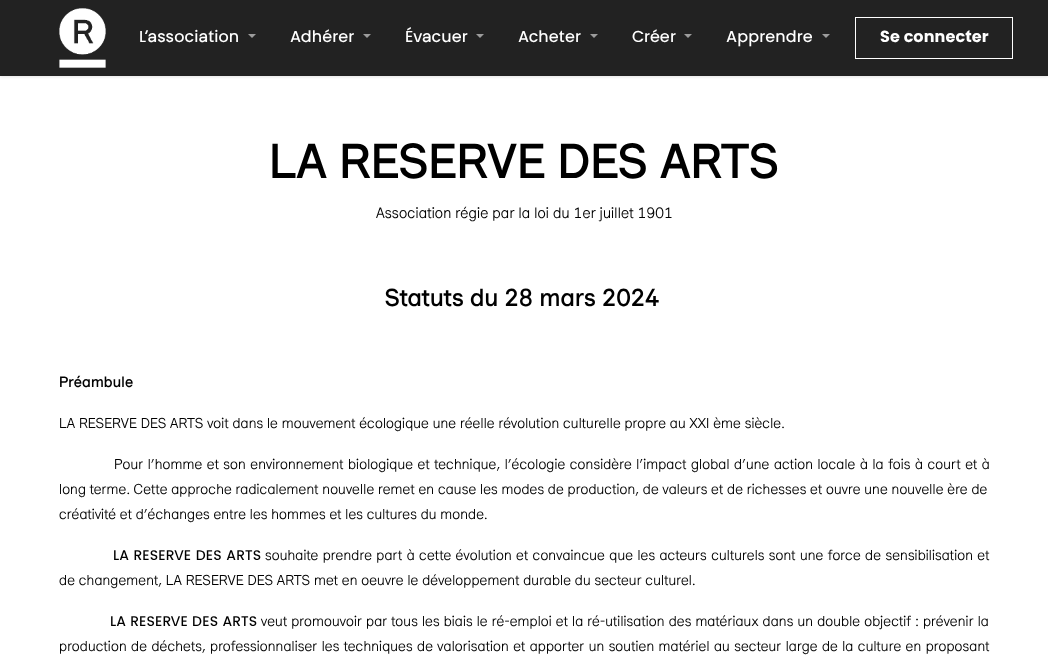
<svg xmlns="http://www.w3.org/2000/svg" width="1048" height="661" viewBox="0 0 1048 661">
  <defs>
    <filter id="blur1" x="-50%" y="-200%" width="200%" height="500%"><feGaussianBlur stdDeviation="1.5"/></filter>
  </defs>
  <rect width="100%" height="100%" fill="#ffffff"/>
  <rect x="0" y="1" width="1048" height="76" fill="#000000" fill-opacity="0.1" filter="url(#blur1)"/>
  <rect x="0" y="0" width="1048" height="76" fill="#222222"/>
  <image x="59" y="8" width="47" height="60" href="img1.png"/>
  <text x="139" y="42" font-family="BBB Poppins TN" font-size="16" letter-spacing="0.16" fill="#ffffff">L’association</text>
  <path d="M248 34H256L252 38Z" fill="#9c9c9c"/>
  <text x="290" y="42" font-family="BBB Poppins TN" font-size="16" letter-spacing="0.16" fill="#ffffff">Adhérer</text>
  <path d="M363 34H371L367 38Z" fill="#9c9c9c"/>
  <text x="405" y="42" font-family="BBB Poppins TN" font-size="16" letter-spacing="0.16" fill="#ffffff">Évacuer</text>
  <path d="M476 34H484L480 38Z" fill="#9c9c9c"/>
  <text x="518" y="42" font-family="BBB Poppins TN" font-size="16" letter-spacing="0.16" fill="#ffffff">Acheter</text>
  <path d="M590 34H598L594 38Z" fill="#9c9c9c"/>
  <text x="632" y="42" font-family="BBB Poppins TN" font-size="16" letter-spacing="0.16" fill="#ffffff">Créer</text>
  <path d="M684 34H692L688 38Z" fill="#9c9c9c"/>
  <text x="726" y="42" font-family="BBB Poppins TN" font-size="16" letter-spacing="0.16" fill="#ffffff">Apprendre</text>
  <path d="M822 34H830L826 38Z" fill="#9c9c9c"/>
  <rect x="855.5" y="17.5" width="157" height="41" fill="none" stroke="#ffffff"/>
  <text x="880" y="42" font-family="BBB Poppins TN" font-size="16" font-weight="bold" letter-spacing="0.16" fill="#ffffff">Se connecter</text>
  <text x="269" y="178" font-family="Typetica" font-size="48" font-weight="bold" letter-spacing="0.16" fill="#000000">LA RESERVE DES ARTS</text>
  <text x="376" y="218" font-family="Typetica" font-size="14.7" letter-spacing="0.16" fill="#000000">Association régie par la loi du 1er juillet 1901</text>
  <text x="385" y="306" font-family="Typetica" font-size="24" font-weight="bold" letter-spacing="0.16" fill="#000000">Statuts du 28 mars 2024</text>
  <text x="59" y="387" font-family="Typetica" font-size="14.7" font-weight="bold" letter-spacing="0.16" fill="#000000">Préambule</text>
  <text x="59" y="428" font-family="Typetica" font-size="14" letter-spacing="0.16" fill="#000000">LA RESERVE DES ARTS voit dans le mouvement écologique une réelle révolution culturelle propre au XXI ème siècle.</text>
  <text x="114" y="469" word-spacing="0.7" font-family="Typetica" font-size="14" letter-spacing="0.16" fill="#000000">Pour l’homme et son environnement biologique et technique, l’écologie considère l’impact global d’une action locale à la fois à court et à</text>
  <text x="59" y="494" font-family="Typetica" font-size="14" letter-spacing="0.16" fill="#000000">long terme. Cette approche radicalement nouvelle remet en cause les modes de production, de valeurs et de richesses et ouvre une nouvelle ère de</text>
  <text x="59" y="519" font-family="Typetica" font-size="14" letter-spacing="0.16" fill="#000000">créativité et d’échanges entre les hommes et les cultures du monde.</text>
  <text x="113" y="560" word-spacing="0.6" font-family="BBB Poppins TN" font-size="14" letter-spacing="0.16" fill="#000000">LA RESERVE DES ARTS</text>
  <text x="265" y="560" word-spacing="0.6" font-family="Typetica" font-size="14" letter-spacing="0.16" fill="#000000">souhaite prendre part à cette évolution et convaincue que les acteurs culturels sont une force de sensibilisation et</text>
  <text x="59" y="585" font-family="Typetica" font-size="14" letter-spacing="0.16" fill="#000000">de changement, LA RESERVE DES ARTS met en oeuvre le développement durable du secteur culturel.</text>
  <text x="110" y="626" word-spacing="0.3" font-family="BBB Poppins TN" font-size="14" letter-spacing="0.16" fill="#000000">LA RESERVE DES ARTS</text>
  <text x="261" y="626" word-spacing="0.3" font-family="Typetica" font-size="14" letter-spacing="0.16" fill="#000000">veut promouvoir par tous les biais le ré-emploi et la ré-utilisation des matériaux dans un double objectif : prévenir la</text>
  <text x="59" y="651" word-spacing="0.6" font-family="Typetica" font-size="14" letter-spacing="0.16" fill="#000000">production de déchets, professionnaliser les techniques de valorisation et apporter un soutien matériel au secteur large de la culture en proposant</text>
</svg>
